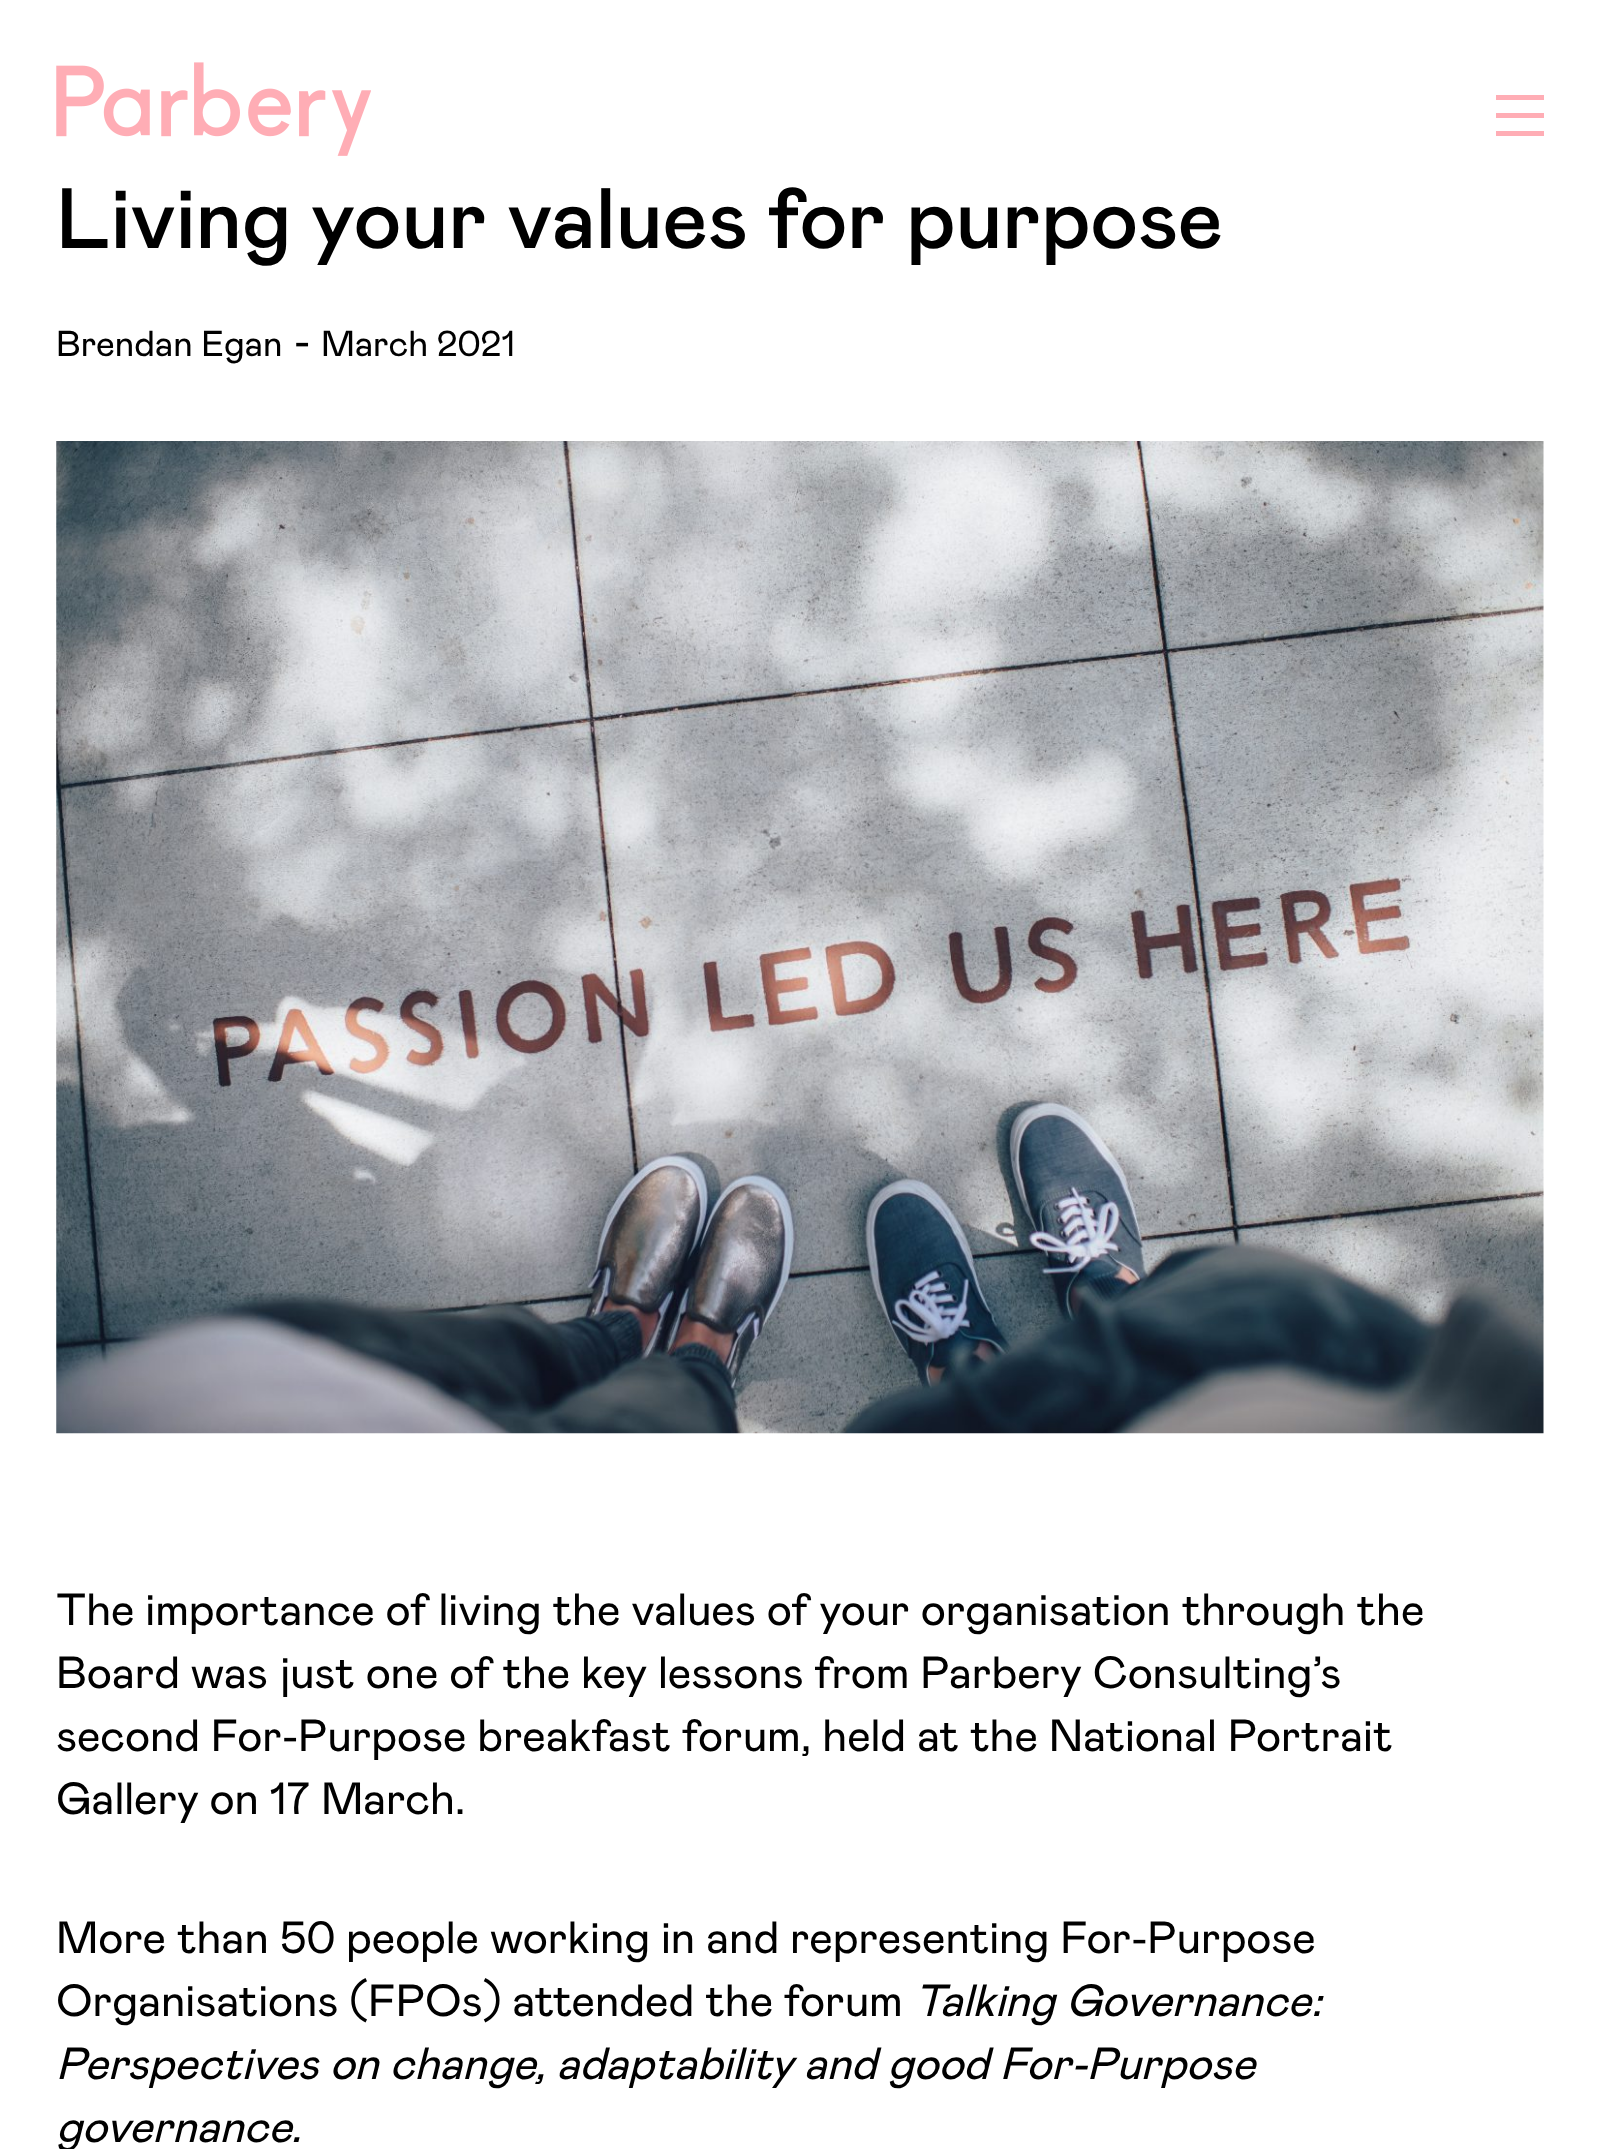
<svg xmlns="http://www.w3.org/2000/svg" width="1598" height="2149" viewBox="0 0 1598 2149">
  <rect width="100%" height="100%" fill="#ffffff"/>
  <image x="56" y="62" width="315" height="94" href="img1.png"/>
  <rect x="1496" y="95" width="48" height="5" fill="#ffadb5"/>
  <rect x="1496" y="113" width="48" height="5" fill="#ffadb5"/>
  <rect x="1496" y="131" width="48" height="5" fill="#ffadb5"/>
  <text x="56" y="248" font-family="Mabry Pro" font-size="85.5" font-weight="500" letter-spacing="-0.25" fill="#000000">Living your values for purpose</text>
  <text x="56" y="356" font-family="Mabry Pro" font-size="36" letter-spacing="-0.1" fill="#000000">Brendan Egan</text>
  <text x="294" y="356" font-family="Mabry Pro" font-size="45" letter-spacing="-0.1" fill="#000000">-</text>
  <text x="321" y="356" font-family="Mabry Pro" font-size="36" letter-spacing="-0.1" fill="#000000">March 2021</text>
  <image x="56" y="441" width="1488" height="993" href="img2.png"/>
  <text x="56" y="1625" font-family="Mabry Pro" font-size="45" letter-spacing="-0.1" fill="#000000">The importance of living the values of your organisation through the</text>
  <text x="56" y="1688" font-family="Mabry Pro" font-size="45" letter-spacing="-0.1" fill="#000000">Board was just one of the key lessons from Parbery Consulting’s</text>
  <text x="56" y="1751" font-family="Mabry Pro" font-size="45" letter-spacing="-0.1" fill="#000000">second For-Purpose breakfast forum, held at the National Portrait</text>
  <text x="56" y="1814" font-family="Mabry Pro" font-size="45" letter-spacing="-0.1" fill="#000000">Gallery on 17 March.</text>
  <text x="56" y="1953" font-family="Mabry Pro" font-size="45" letter-spacing="-0.1" fill="#000000">More than 50 people working in and representing For-Purpose</text>
  <text x="56" y="2016" font-family="Mabry Pro" font-size="45" letter-spacing="-0.1" fill="#000000">Organisations (FPOs) attended the forum</text>
  <text x="914" y="2016" font-family="Mabry Pro" font-size="45" font-style="italic" letter-spacing="-0.1" fill="#000000">Talking Governance:</text>
  <text x="56" y="2079" font-family="Mabry Pro" font-size="45" font-style="italic" letter-spacing="-0.1" fill="#000000">Perspectives on change, adaptability and good For-Purpose</text>
  <text x="56" y="2142" font-family="Mabry Pro" font-size="45" font-style="italic" letter-spacing="-0.1" fill="#000000">governance.</text>
</svg>
